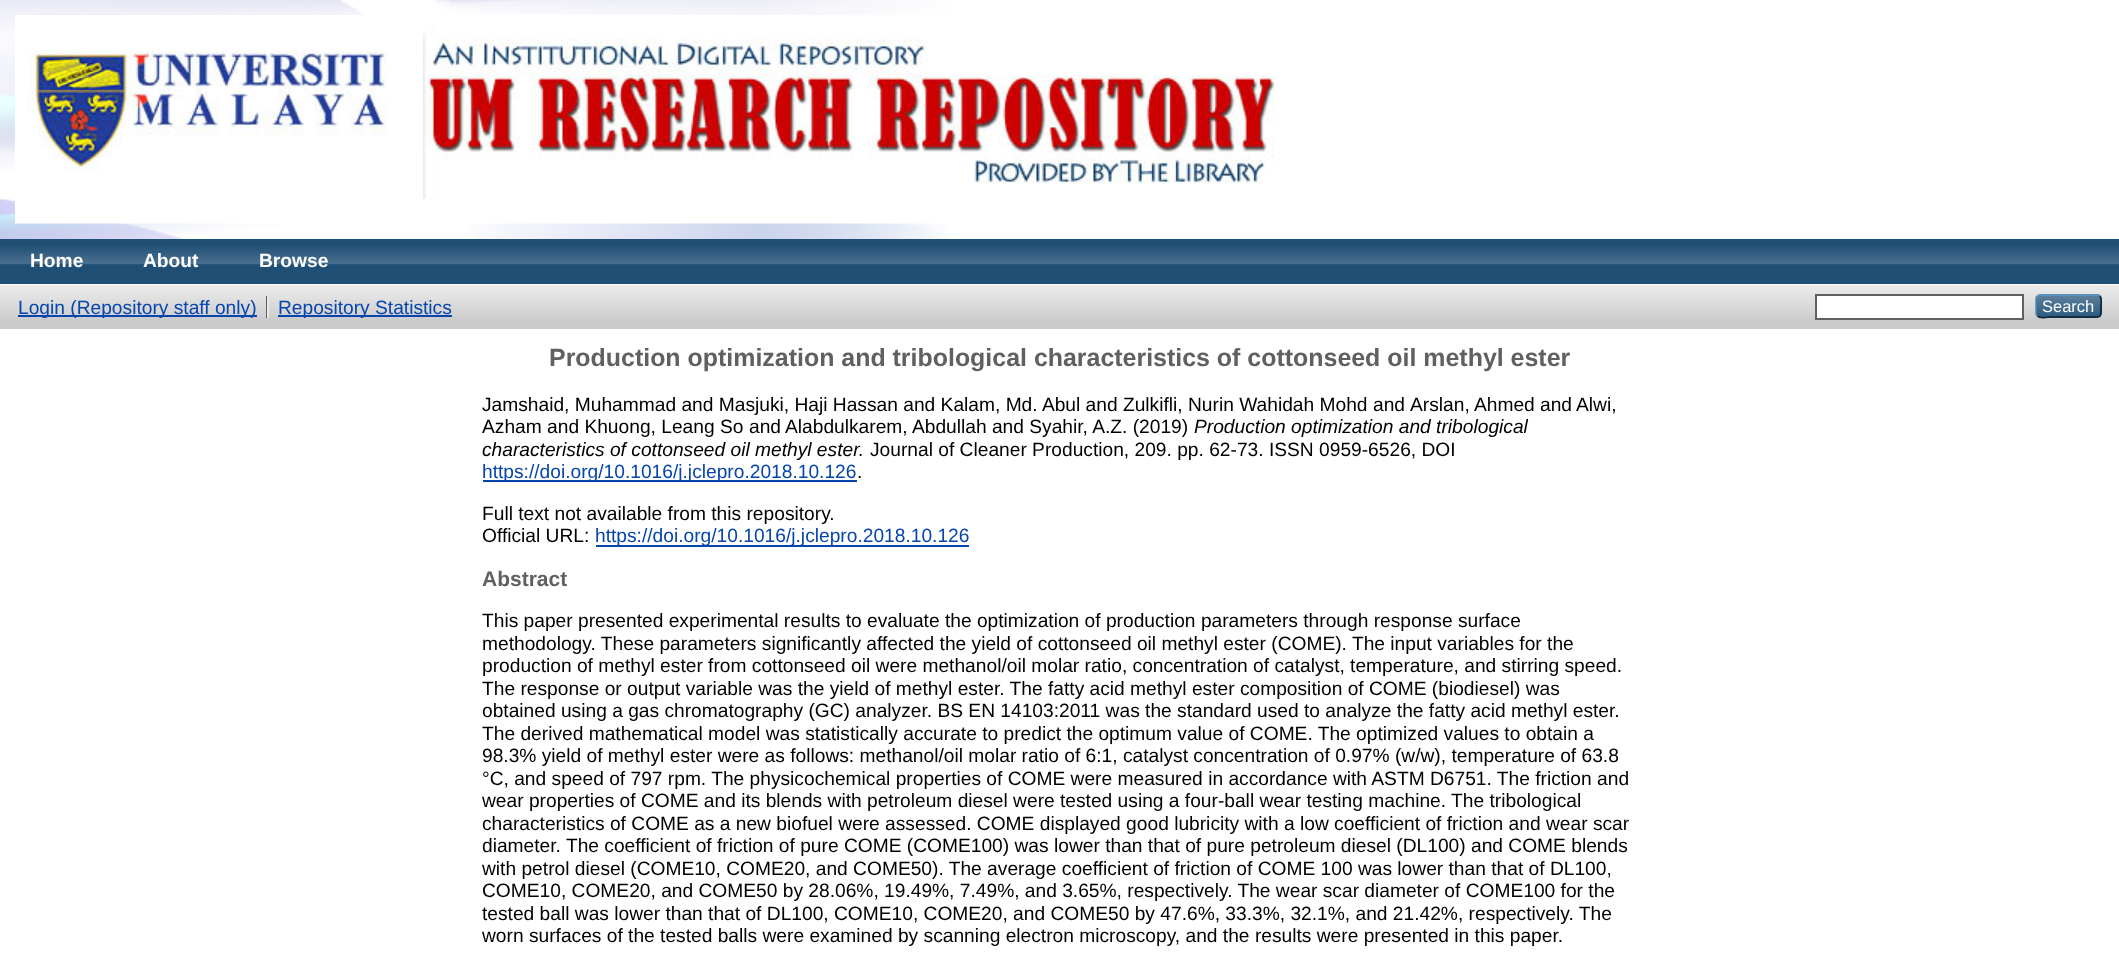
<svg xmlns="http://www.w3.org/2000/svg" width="2119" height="957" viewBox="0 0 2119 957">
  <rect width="100%" height="100%" fill="#ffffff"/>
  <image x="0" y="0" width="948" height="239" href="img1.png"/>
  <image x="15" y="15" width="1260" height="209" href="img2.png"/>
  <rect x="0" y="239" width="2119" height="45" fill="#204f76"/>
  <image x="0" y="247" width="2119" height="18" href="img3.png"/>
  <text x="30" y="267" font-family="Liberation Sans" font-size="19.2" font-weight="bold" fill="#ffffff">Home</text>
  <text x="143" y="267" font-family="Liberation Sans" font-size="19.2" font-weight="bold" fill="#ffffff">About</text>
  <text x="259" y="267" font-family="Liberation Sans" font-size="19.2" font-weight="bold" fill="#ffffff">Browse</text>
  <rect x="0" y="285" width="2119" height="44" fill="#cccccc"/>
  <image x="0" y="285" width="2119" height="32" href="img4.png"/>
  <rect x="18" y="315" width="239" height="2" fill="#0645ad"/>
  <text x="18" y="314" font-family="Liberation Sans" font-size="19.2" fill="#0645ad">Login (Repository staff only)</text>
  <rect x="266" y="296" width="1" height="22" fill="#606060"/>
  <rect x="278" y="315" width="174" height="2" fill="#0645ad"/>
  <text x="278" y="314" font-family="Liberation Sans" font-size="19.2" fill="#0645ad">Repository Statistics</text>
  <rect x="267" y="296" width="2" height="22" fill="#e8e8e8"/>
  <rect x="1816" y="295" width="207" height="24" fill="#ffffff" stroke="#606060" stroke-width="2"/>
  <rect x="2036" y="294" width="66" height="24" rx="5" fill="#1f4f76"/>
  <image x="2036" y="294" width="66" height="24" href="img5.png"/>
  <path d="M2037.5 296L2039.5 295H2097.5L2099.5 296" fill="none" stroke="#5b97c7" stroke-width="1.5"/>
  <path d="M2099.5 296C2102 298 2101 303 2101 306C2101 319 2101.5 317 2087.5 317H2049.5C2049 317 2040 319 2037.5 316" fill="none" stroke="#0d2131" stroke-width="1.5"/>
  <path d="M2037.5 316C2036.5 315.5 2036 314.5 2036 313.5V298.5C2036 297.5 2036.5 296.5 2037.5 296" fill="none" stroke="#5287b3" stroke-width="1.5"/>
  <text x="2042" y="312" font-family="Liberation Sans" font-size="16.5" fill="#ffffff">Search</text>
  <text x="549" y="366" font-family="Liberation Sans" font-size="24.95" font-weight="bold" fill="#606060">Production optimization and tribological characteristics of cottonseed oil methyl ester</text>
  <text x="482" y="411" font-family="Liberation Sans" font-size="19.2" fill="#000000">Jamshaid, Muhammad and Masjuki, Haji Hassan and Kalam, Md. Abul and Zulkifli, Nurin Wahidah Mohd</text>
  <text x="1373" y="411" font-family="Liberation Sans" font-size="19.2" fill="#000000">and</text>
  <text x="1410" y="411" font-family="Liberation Sans" font-size="19.2" fill="#000000">Arslan, Ahmed</text>
  <text x="1540" y="411" font-family="Liberation Sans" font-size="19.2" fill="#000000">and</text>
  <text x="1576" y="411" font-family="Liberation Sans" font-size="19.2" fill="#000000">Alwi,</text>
  <text x="482" y="433" font-family="Liberation Sans" font-size="19.2" fill="#000000">Azham and Khuong, Leang So</text>
  <text x="749" y="433" font-family="Liberation Sans" font-size="19.2" fill="#000000">and</text>
  <text x="785" y="433" font-family="Liberation Sans" font-size="19.2" fill="#000000">Alabdulkarem, Abdullah and Syahir, A.Z. (2019)</text>
  <text x="1194" y="433" font-family="Liberation Sans" font-size="19.2" font-style="italic" fill="#000000">Production optimization and tribological</text>
  <text x="482" y="456" font-family="Liberation Sans" font-size="19.2" font-style="italic" fill="#000000">characteristics of cottonseed oil methyl ester.</text>
  <text x="870" y="456" font-family="Liberation Sans" font-size="19.2" fill="#000000">Journal of Cleaner Production, 209. pp. 62-73. ISSN 0959-6526, DOI</text>
  <rect x="483" y="480" width="374" height="2" fill="#0645ad"/>
  <text x="482" y="478" font-family="Liberation Sans" font-size="19.2" fill="#0645ad">https://doi.org/10.1016/j.jclepro.2018.10.126</text>
  <text x="857" y="478" font-family="Liberation Sans" font-size="19.2" fill="#000000">.</text>
  <text x="482" y="520" font-family="Liberation Sans" font-size="19.2" fill="#000000">Full text not available from this repository.</text>
  <text x="482" y="542" font-family="Liberation Sans" font-size="19.2" fill="#000000">Official URL:</text>
  <rect x="596" y="545" width="373" height="2" fill="#0645ad"/>
  <text x="595" y="542" font-family="Liberation Sans" font-size="19.2" fill="#0645ad">https://doi.org/10.1016/j.jclepro.2018.10.126</text>
  <text x="482" y="586" font-family="Liberation Sans" font-size="21" font-weight="bold" fill="#606060">Abstract</text>
  <text x="482" y="627" font-family="Liberation Sans" font-size="19.2" fill="#000000">This paper presented experimental results to evaluate the optimization of production parameters through response surface</text>
  <text x="482" y="650" font-family="Liberation Sans" font-size="19.2" fill="#000000">methodology. These parameters significantly affected the yield of cottonseed oil methyl ester (COME). The input variables for the</text>
  <text x="482" y="672" font-family="Liberation Sans" font-size="19.2" fill="#000000">production of methyl ester from cottonseed oil were methanol/oil molar ratio, concentration of catalyst, temperature, and stirring speed.</text>
  <text x="482" y="695" font-family="Liberation Sans" font-size="19.2" fill="#000000">The response or output variable was the yield of methyl ester. The fatty acid methyl ester composition of COME (biodiesel) was</text>
  <text x="482" y="717" font-family="Liberation Sans" font-size="19.2" fill="#000000">obtained using a gas chromatography (GC) analyzer. BS EN 14103:2011 was the standard used to analyze the fatty acid methyl ester.</text>
  <text x="482" y="740" font-family="Liberation Sans" font-size="19.2" fill="#000000">The derived mathematical model was statistically accurate to predict the optimum value of COME. The optimized values to obtain a</text>
  <text x="482" y="762" font-family="Liberation Sans" font-size="19.2" fill="#000000">98.3% yield of methyl ester were as follows: methanol/oil molar ratio of 6:1, catalyst concentration of 0.97% (w/w), temperature of 63.8</text>
  <text x="482" y="785" font-family="Liberation Sans" font-size="19.2" fill="#000000">°C, and speed of 797 rpm. The physicochemical properties of COME were measured in accordance with ASTM D6751. The friction and</text>
  <text x="482" y="807" font-family="Liberation Sans" font-size="19.2" fill="#000000">wear properties of COME and its blends with petroleum diesel were tested using a four-ball wear testing machine. The tribological</text>
  <text x="482" y="830" font-family="Liberation Sans" font-size="19.2" fill="#000000">characteristics of COME as a new biofuel were assessed. COME displayed good lubricity with a low coefficient of friction and wear scar</text>
  <text x="482" y="852" font-family="Liberation Sans" font-size="19.2" fill="#000000">diameter. The coefficient of friction of pure COME (COME100) was lower than that of pure petroleum diesel (DL100) and COME blends</text>
  <text x="482" y="875" font-family="Liberation Sans" font-size="19.2" fill="#000000">with petrol diesel (COME10, COME20, and COME50). The average coefficient of friction of COME 100 was lower than that of DL100,</text>
  <text x="482" y="897" font-family="Liberation Sans" font-size="19.2" fill="#000000">COME10, COME20, and COME50 by 28.06%, 19.49%, 7.49%, and 3.65%, respectively. The wear scar diameter of COME100 for the</text>
  <text x="482" y="920" font-family="Liberation Sans" font-size="19.2" fill="#000000">tested ball was lower than that of DL100, COME10, COME20, and COME50 by 47.6%, 33.3%, 32.1%, and 21.42%, respectively. The</text>
  <text x="482" y="942" font-family="Liberation Sans" font-size="19.2" fill="#000000">worn surfaces of the tested balls were examined by scanning electron microscopy, and the results were presented in this paper.</text>
</svg>
